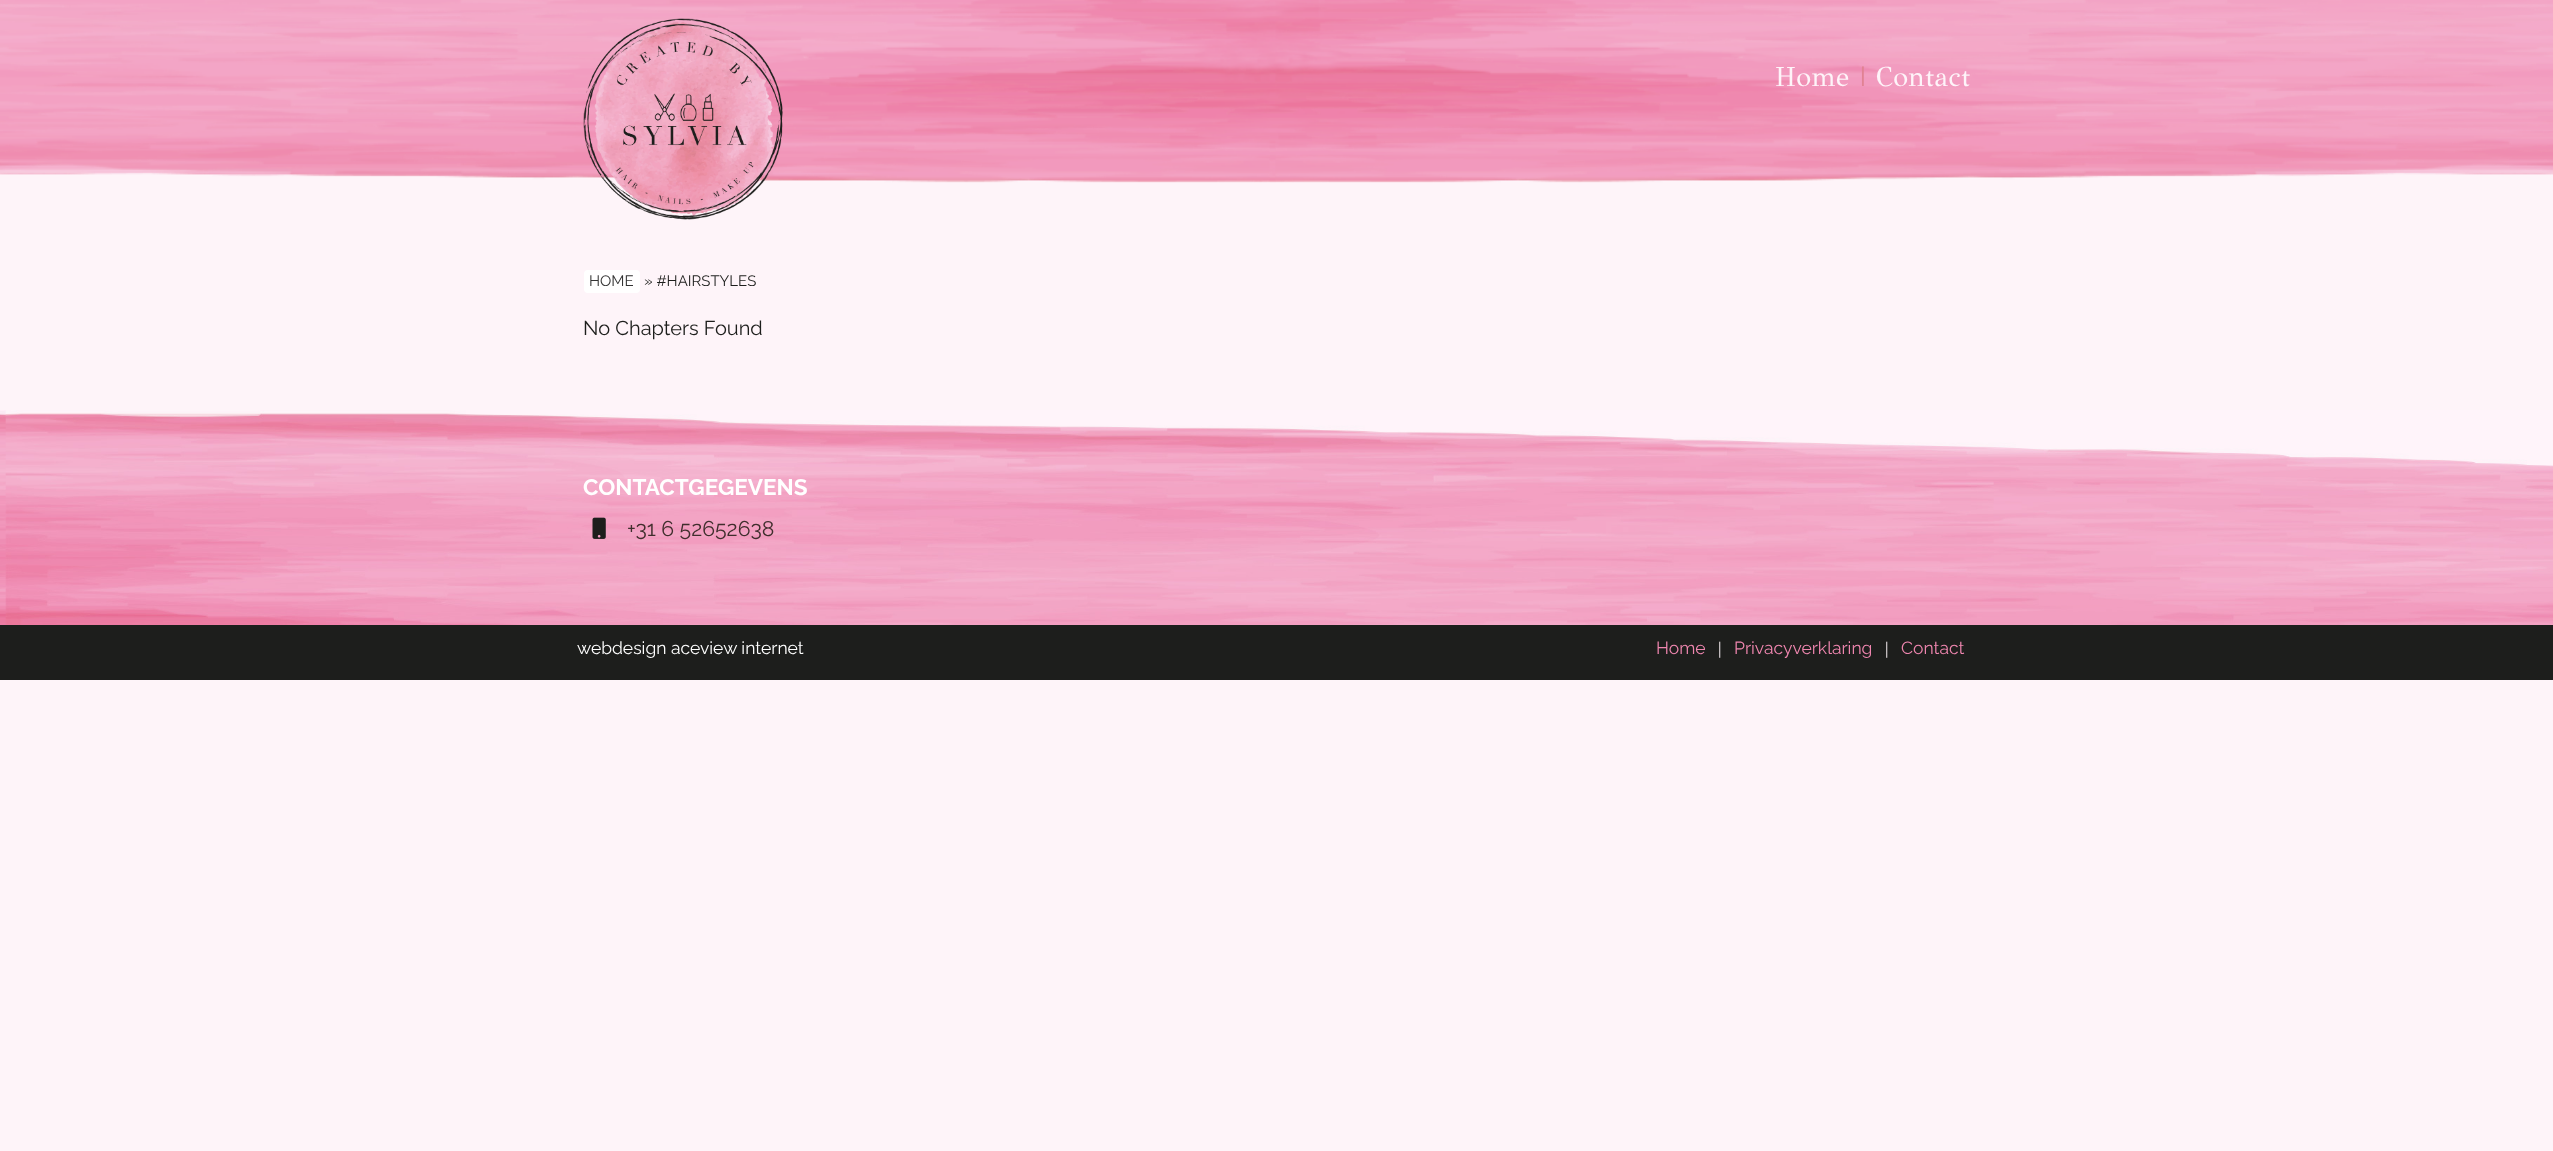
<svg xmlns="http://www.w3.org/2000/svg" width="2553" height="1151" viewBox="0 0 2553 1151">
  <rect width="100%" height="100%" fill="#fef4f9"/>
  <image x="0" y="0" width="2553" height="183" href="img1.png"/>
  <image x="583" y="18" width="200" height="202" href="img2.png"/>
  <text x="1775" y="86" font-family="GFS Didot" font-size="27.5" letter-spacing="0.5" fill="#fef4f9">Home</text>
  <text x="1860" y="86" font-family="GFS Didot" font-size="27.5" letter-spacing="0.5" fill="#e18293">|</text>
  <text x="1876" y="86" font-family="GFS Didot" font-size="27.5" letter-spacing="0.5" fill="#fef4f9">Contact</text>
  <rect x="584" y="270" width="56" height="23" rx="4" fill="#ffffff"/>
  <text x="589" y="286" font-family="Raleway" font-size="15" fill="#333333">HOME</text>
  <text x="644" y="286" font-family="Raleway" font-size="15" fill="#1d1e1c">» #HAIRSTYLES</text>
  <text x="583" y="335" font-family="Raleway" font-size="20" fill="#1d1e1c">No Chapters Found</text>
  <image x="0" y="410" width="2553" height="215" href="img3.png"/>
  <text x="583" y="495" font-family="Raleway" font-size="22.5" font-weight="bold" fill="#ffffff">CONTACTGEGEVENS</text>
  <image x="592" y="517" width="14" height="22" href="img4.png"/>
  <text x="627" y="536" font-family="Raleway" font-size="21.25" fill="#402e2d">+31 6 52652638</text>
  <rect x="0" y="625" width="2553" height="55" fill="#1d1e1c"/>
  <text x="577" y="654" font-family="Raleway" font-size="17.5" fill="#ffffff">webdesign aceview internet</text>
  <text x="1656" y="654" font-family="Raleway" font-size="17.5" fill="#ef86af">Home</text>
  <text x="1718" y="654" font-family="Liberation Serif" font-size="17.5" fill="#fef4f9">|</text>
  <text x="1734" y="654" font-family="Raleway" font-size="17.5" fill="#ef86af">Privacyverklaring</text>
  <text x="1885" y="654" font-family="Liberation Serif" font-size="17.5" fill="#fef4f9">|</text>
  <text x="1901" y="654" font-family="Raleway" font-size="17.5" fill="#ef86af">Contact</text>
</svg>
